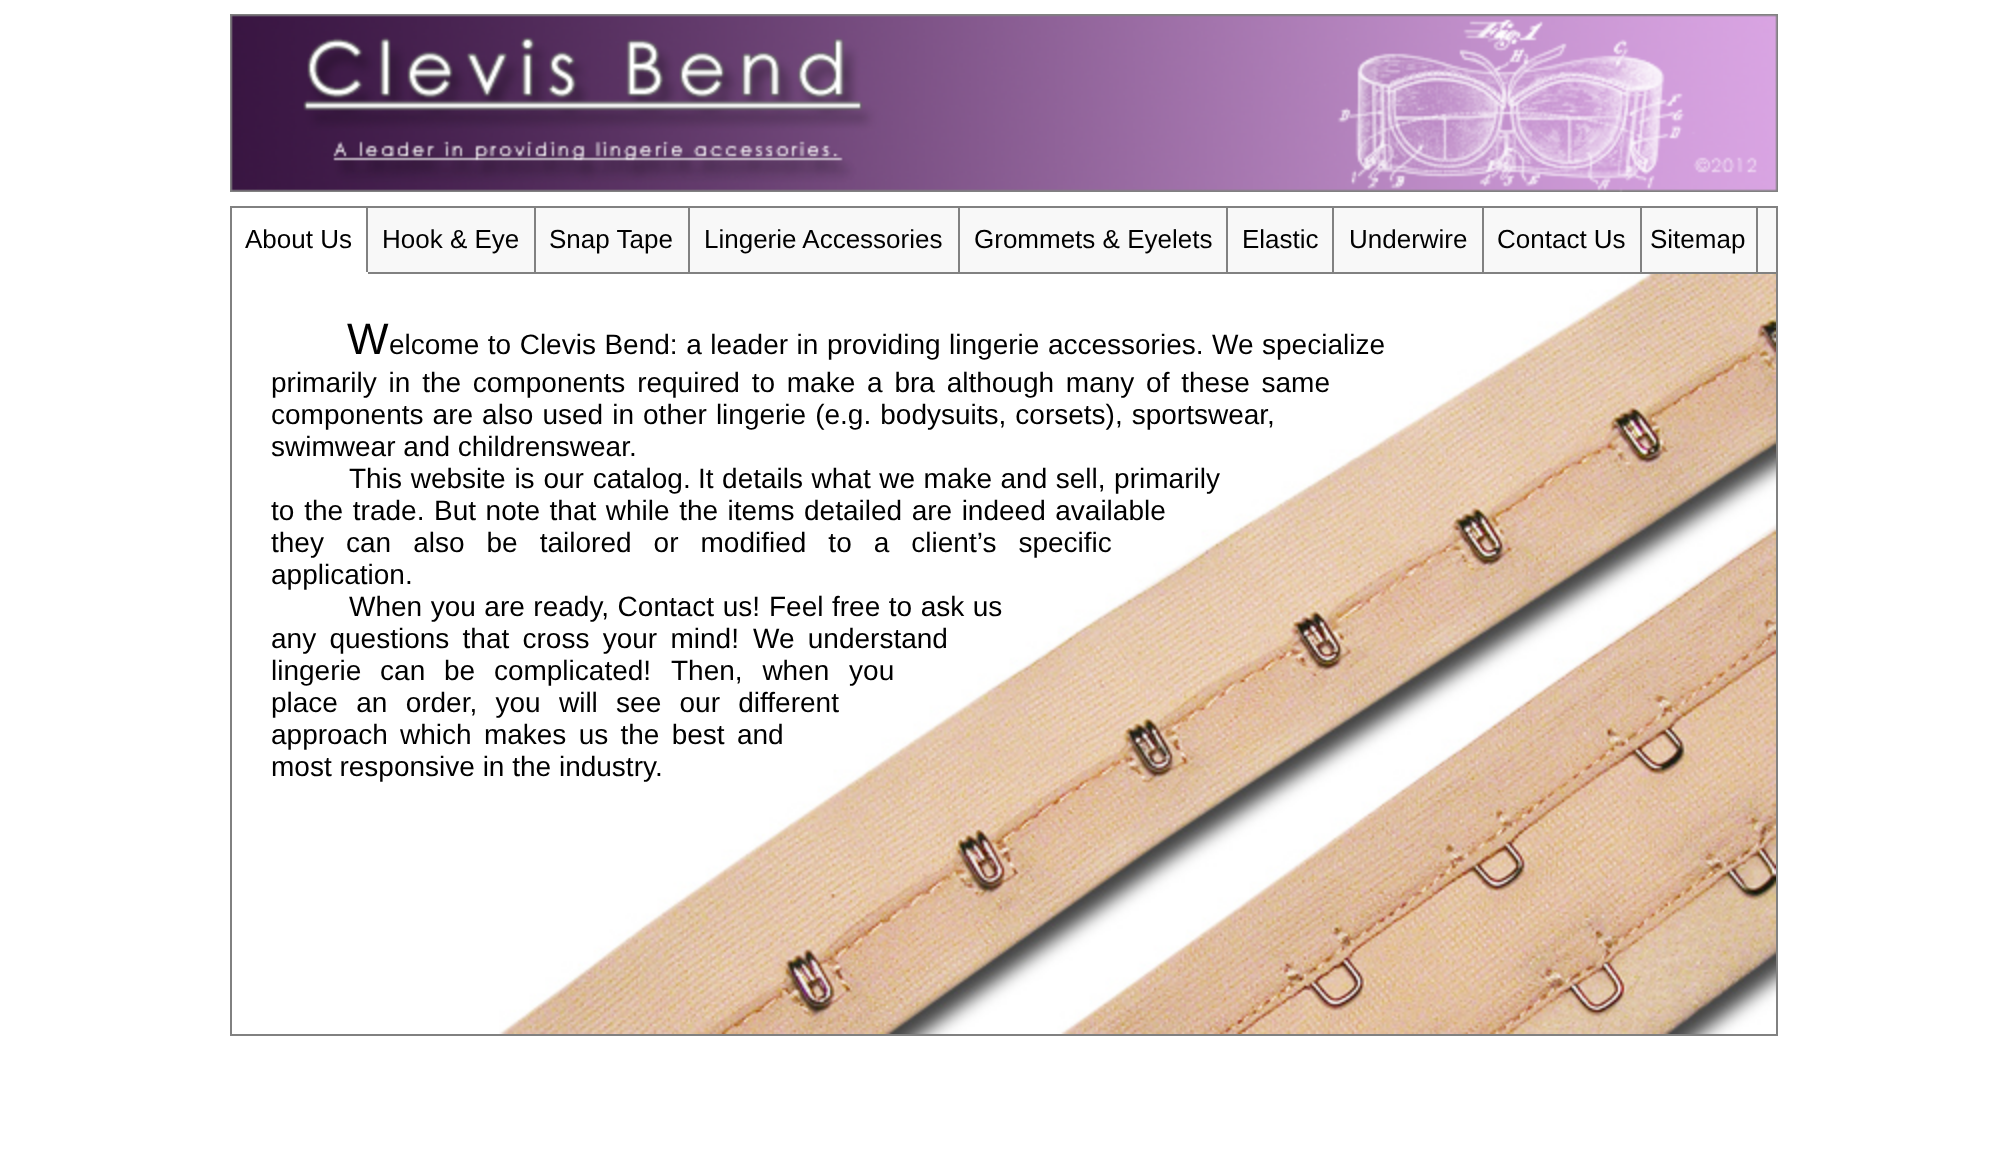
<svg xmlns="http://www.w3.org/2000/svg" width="2009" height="1157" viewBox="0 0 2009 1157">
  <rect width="100%" height="100%" fill="#ffffff"/>
  <image x="230" y="14" width="1548" height="178" href="img1.png"/>
  <rect x="231" y="207" width="1546" height="828" fill="none" stroke="#818181" stroke-width="2"/>
  <rect x="368" y="208" width="1408" height="64" fill="#f8f8f8"/>
  <rect x="368" y="272" width="1408" height="2" fill="#818181"/>
  <rect x="366" y="208" width="2" height="66" fill="#818181"/>
  <rect x="366" y="272" width="2" height="2" fill="#ffffff"/>
  <text x="245" y="248" font-family="Liberation Sans" font-size="26" fill="#000000">About Us</text>
  <rect x="534" y="208" width="2" height="64" fill="#818181"/>
  <text x="382" y="248" font-family="Liberation Sans" font-size="26" fill="#000000">Hook &amp; Eye</text>
  <rect x="688" y="208" width="2" height="64" fill="#818181"/>
  <text x="549" y="248" font-family="Liberation Sans" font-size="26" fill="#000000">Snap Tape</text>
  <rect x="958" y="208" width="2" height="64" fill="#818181"/>
  <text x="704" y="248" font-family="Liberation Sans" font-size="26" fill="#000000">Lingerie Accessories</text>
  <rect x="1226" y="208" width="2" height="64" fill="#818181"/>
  <text x="974" y="248" font-family="Liberation Sans" font-size="26" fill="#000000">Grommets &amp; Eyelets</text>
  <rect x="1332" y="208" width="2" height="64" fill="#818181"/>
  <text x="1242" y="248" font-family="Liberation Sans" font-size="26" fill="#000000">Elastic</text>
  <rect x="1482" y="208" width="2" height="64" fill="#818181"/>
  <text x="1349" y="248" font-family="Liberation Sans" font-size="26" fill="#000000">Underwire</text>
  <rect x="1640" y="208" width="2" height="64" fill="#818181"/>
  <text x="1497" y="248" font-family="Liberation Sans" font-size="26" fill="#000000">Contact Us</text>
  <rect x="1756" y="208" width="2" height="64" fill="#818181"/>
  <text x="1650" y="248" font-family="Liberation Sans" font-size="26" fill="#000000">Sitemap</text>
  <image x="499" y="274" width="1277" height="760" href="img2.png"/>
  <text x="347" y="354" font-family="Liberation Sans" font-size="44" fill="#000000">W</text>
  <text x="389" y="354" word-spacing="0.75" font-family="Liberation Sans" font-size="28" fill="#000000">elcome to Clevis Bend: a leader in providing lingerie accessories. We specialize</text>
  <text x="271" y="392" word-spacing="4" font-family="Liberation Sans" font-size="28" fill="#000000">primarily in the components required to make a bra although many of these same</text>
  <text x="271" y="424" word-spacing="1.25" font-family="Liberation Sans" font-size="28" fill="#000000">components are also used in other lingerie (e.g. bodysuits, corsets), sportswear,</text>
  <text x="271" y="456" font-family="Liberation Sans" font-size="28" fill="#000000">swimwear and childrenswear.</text>
  <text x="349" y="488" word-spacing="1" font-family="Liberation Sans" font-size="28" fill="#000000">This website is our catalog.</text>
  <text x="698" y="488" word-spacing="0.75" font-family="Liberation Sans" font-size="28" fill="#000000">It details what we make and sell, primarily</text>
  <text x="271" y="520" word-spacing="2" font-family="Liberation Sans" font-size="28" fill="#000000">to the trade.</text>
  <text x="434" y="520" word-spacing="1.75" font-family="Liberation Sans" font-size="28" fill="#000000">But note that while the items detailed are indeed available</text>
  <text x="271" y="552" word-spacing="14.25" font-family="Liberation Sans" font-size="28" fill="#000000">they can also be tailored or modified to a client’s specific</text>
  <text x="271" y="584" font-family="Liberation Sans" font-size="28" fill="#000000">application.</text>
  <text x="349" y="616" word-spacing="0.75" font-family="Liberation Sans" font-size="28" fill="#000000">When you are ready, Contact us!</text>
  <text x="769" y="616" word-spacing="0.75" font-family="Liberation Sans" font-size="28" fill="#000000">Feel free to ask us</text>
  <text x="271" y="648" word-spacing="5.5" font-family="Liberation Sans" font-size="28" fill="#000000">any questions that cross your mind!</text>
  <text x="753" y="648" word-spacing="5.5" font-family="Liberation Sans" font-size="28" fill="#000000">We understand</text>
  <text x="271" y="680" word-spacing="11" font-family="Liberation Sans" font-size="28" fill="#000000">lingerie can be complicated!</text>
  <text x="671" y="680" word-spacing="12" font-family="Liberation Sans" font-size="28" fill="#000000">Then, when you</text>
  <text x="271" y="712" word-spacing="10.5" font-family="Liberation Sans" font-size="28" fill="#000000">place an order, you will see our different</text>
  <text x="271" y="744" word-spacing="4.5" font-family="Liberation Sans" font-size="28" fill="#000000">approach which makes us the best and</text>
  <text x="271" y="776" font-family="Liberation Sans" font-size="28" fill="#000000">most responsive in the industry.</text>
</svg>
